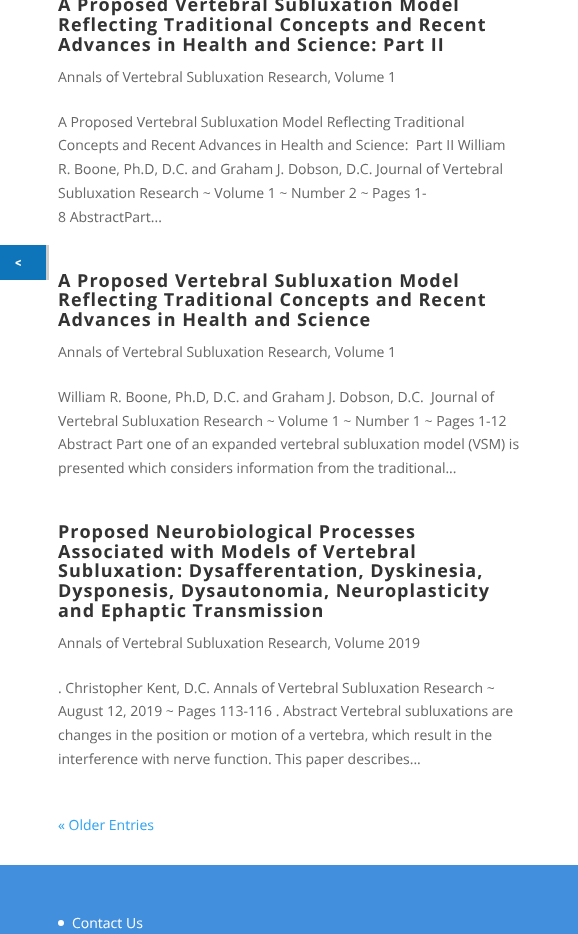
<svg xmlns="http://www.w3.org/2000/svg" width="578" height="934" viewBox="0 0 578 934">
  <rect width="100%" height="100%" fill="#ffffff"/>
  <rect x="0" y="245" width="46" height="35" fill="#0e75bb"/>
  <rect x="46" y="245" width="3" height="35" fill="#cecece"/>
  <text x="15" y="267" font-family="Cabin" font-size="15" font-weight="bold" fill="#ffffff">&lt;</text>
  <text x="58" y="11" font-family="Open Sans" font-size="18" font-weight="bold" letter-spacing="1" fill="#333333">A Proposed Vertebral Subluxation Model</text>
  <text x="58" y="31" font-family="Open Sans" font-size="18" font-weight="bold" letter-spacing="1" fill="#333333">Reflecting Traditional Concepts and Recent</text>
  <text x="58" y="51" font-family="Open Sans" font-size="18" font-weight="bold" letter-spacing="1" fill="#333333">Advances in Health and Science: Part II</text>
  <text x="58" y="82" font-family="Open Sans" font-size="14" fill="#666666">Annals of Vertebral Subluxation Research, Volume 1</text>
  <text x="58" y="127" font-family="Open Sans" font-size="14" fill="#666666">A Proposed Vertebral Subluxation Model Reflecting Traditional</text>
  <text x="58" y="150" font-family="Open Sans" font-size="14" fill="#666666" xml:space="preserve">Concepts and Recent Advances in Health and Science:  Part II William</text>
  <text x="58" y="174" font-family="Open Sans" font-size="14" fill="#666666">R. Boone, Ph.D, D.C. and Graham J. Dobson, D.C. Journal of Vertebral</text>
  <text x="58" y="198" font-family="Open Sans" font-size="14" fill="#666666">Subluxation Research ~ Volume 1 ~ Number 2 ~ Pages 1-</text>
  <text x="58" y="222" font-family="Open Sans" font-size="14" fill="#666666">8 AbstractPart...</text>
  <text x="58" y="287" font-family="Open Sans" font-size="18" font-weight="bold" letter-spacing="1" fill="#333333">A Proposed Vertebral Subluxation Model</text>
  <text x="58" y="306" font-family="Open Sans" font-size="18" font-weight="bold" letter-spacing="1" fill="#333333">Reflecting Traditional Concepts and Recent</text>
  <text x="58" y="326" font-family="Open Sans" font-size="18" font-weight="bold" letter-spacing="1" fill="#333333">Advances in Health and Science</text>
  <text x="58" y="357" font-family="Open Sans" font-size="14" fill="#666666">Annals of Vertebral Subluxation Research, Volume 1</text>
  <text x="58" y="402" font-family="Open Sans" font-size="14" fill="#666666" xml:space="preserve">William R. Boone, Ph.D, D.C. and Graham J. Dobson, D.C.  Journal of</text>
  <text x="58" y="426" font-family="Open Sans" font-size="14" fill="#666666">Vertebral Subluxation Research ~ Volume 1 ~ Number 1 ~ Pages 1-12</text>
  <text x="58" y="449" font-family="Open Sans" font-size="14" fill="#666666">Abstract Part one of an expanded vertebral subluxation model (VSM) is</text>
  <text x="58" y="473" font-family="Open Sans" font-size="14" fill="#666666">presented which considers information from the traditional...</text>
  <text x="58" y="538" font-family="Open Sans" font-size="18" font-weight="bold" letter-spacing="1" fill="#333333">Proposed Neurobiological Processes</text>
  <text x="58" y="558" font-family="Open Sans" font-size="18" font-weight="bold" letter-spacing="1" fill="#333333">Associated with Models of Vertebral</text>
  <text x="58" y="577" font-family="Open Sans" font-size="18" font-weight="bold" letter-spacing="1" fill="#333333">Subluxation: Dysafferentation, Dyskinesia,</text>
  <text x="58" y="597" font-family="Open Sans" font-size="18" font-weight="bold" letter-spacing="1" fill="#333333">Dysponesis, Dysautonomia, Neuroplasticity</text>
  <text x="58" y="617" font-family="Open Sans" font-size="18" font-weight="bold" letter-spacing="1" fill="#333333">and Ephaptic Transmission</text>
  <text x="58" y="648" font-family="Open Sans" font-size="14" fill="#666666">Annals of Vertebral Subluxation Research, Volume 2019</text>
  <text x="58" y="693" font-family="Open Sans" font-size="14" fill="#666666">. Christopher Kent, D.C. Annals of Vertebral Subluxation Research ~</text>
  <text x="58" y="716" font-family="Open Sans" font-size="14" fill="#666666">August 12, 2019 ~ Pages 113-116 . Abstract Vertebral subluxations are</text>
  <text x="58" y="740" font-family="Open Sans" font-size="14" fill="#666666">changes in the position or motion of a vertebra, which result in the</text>
  <text x="58" y="764" font-family="Open Sans" font-size="14" fill="#666666">interference with nerve function. This paper describes...</text>
  <text x="58" y="830" font-family="Open Sans" font-size="14" fill="#2ea3f2">« Older Entries</text>
  <rect x="0" y="865" width="578" height="69" fill="#428fdd"/>
  <circle cx="61" cy="923" r="3" fill="#ffffff"/>
  <text x="72" y="928" font-family="Open Sans" font-size="14" fill="#ffffff">Contact Us</text>
</svg>
